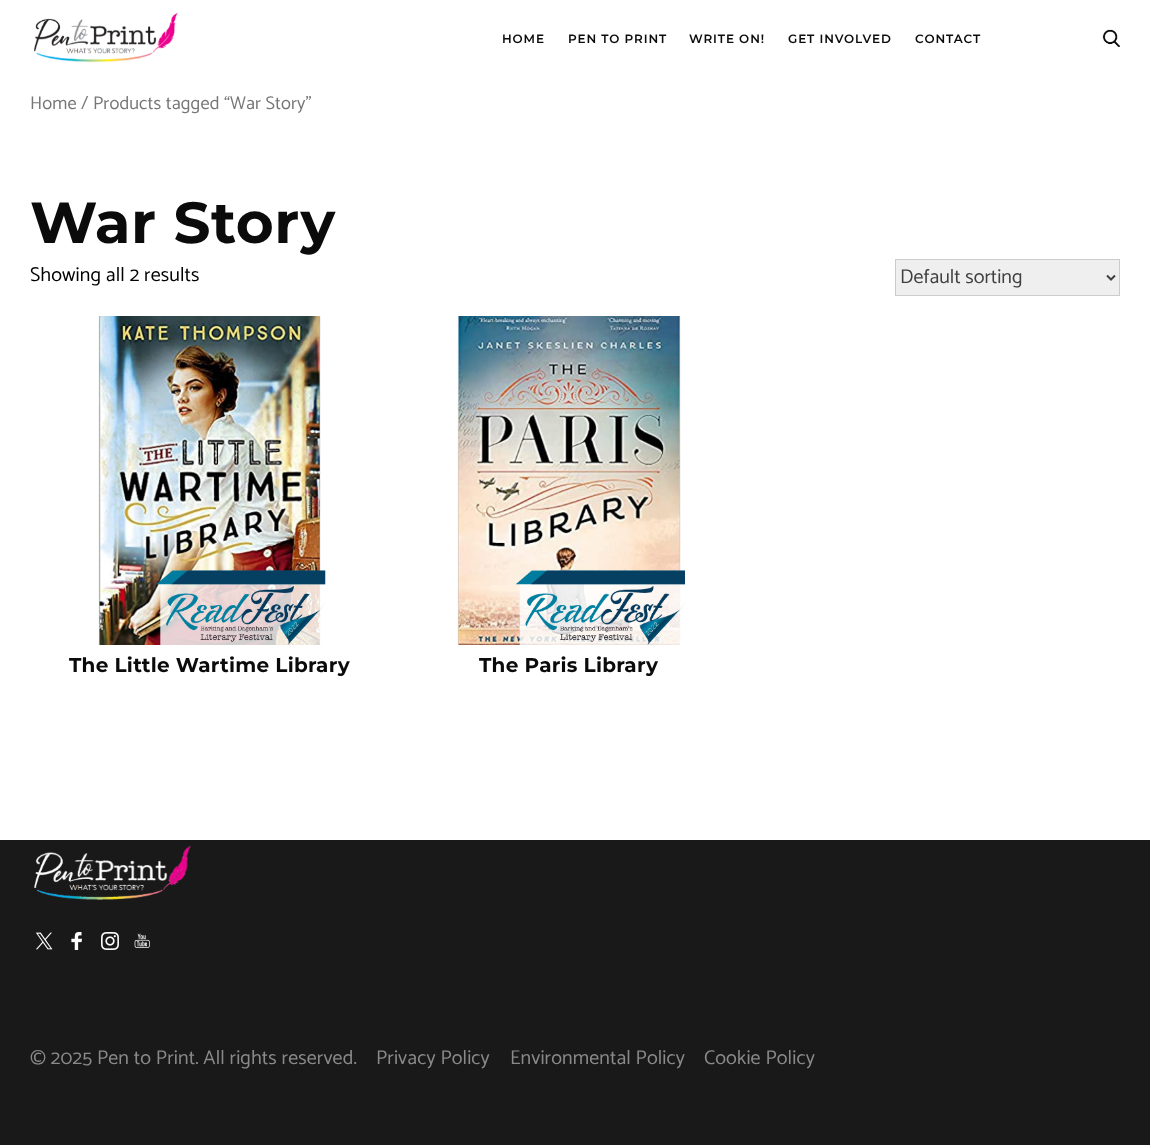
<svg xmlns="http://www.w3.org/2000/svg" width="1150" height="1145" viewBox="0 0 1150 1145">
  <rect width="100%" height="100%" fill="#191919"/>
  <rect x="0" y="0" width="1150" height="840" fill="#ffffff"/>
  <image x="34" y="12" width="144" height="51" href="img1.png"/>
  <text x="502" y="43" font-family="Montserrat" font-size="12" font-weight="600" letter-spacing="0.9" fill="#0b0b0b">HOME</text>
  <text x="568" y="43" font-family="Montserrat" font-size="12" font-weight="600" letter-spacing="0.9" fill="#0b0b0b">PEN TO PRINT</text>
  <text x="689" y="43" font-family="Montserrat" font-size="12" font-weight="600" letter-spacing="0.9" fill="#0b0b0b">WRITE ON!</text>
  <text x="788" y="43" font-family="Montserrat" font-size="12" font-weight="600" letter-spacing="0.9" fill="#0b0b0b">GET INVOLVED</text>
  <text x="915" y="43" font-family="Montserrat" font-size="12" font-weight="600" letter-spacing="0.9" fill="#0b0b0b">CONTACT</text>
  <image x="1102" y="29" width="18" height="18" href="img2.png"/>
  <text x="30" y="109" font-family="Catamaran" font-size="18.4" letter-spacing="0.1" fill="#767676">Home / Products tagged “War Story”</text>
  <text x="30" y="243" font-family="Montserrat" font-size="58" font-weight="bold" letter-spacing="0.5" fill="#0b0b0b">War Story</text>
  <text x="30" y="281" font-family="Catamaran" font-size="20" letter-spacing="0.1" fill="#000000">Showing all 2 results</text>
  <rect x="895.5" y="259.5" width="224" height="36" fill="#efefef" stroke="#cccccc"/>
  <path d="M1107 275.5L1111 279.5L1115 275.5" fill="none" stroke="#404040" stroke-width="2"/>
  <text x="900" y="283" font-family="Catamaran" font-size="20" fill="#404040">Default sorting</text>
  <image x="98" y="316" width="228" height="329" href="img3.png"/>
  <text x="69" y="672" font-family="Montserrat" font-size="20" font-weight="bold" letter-spacing="0.25" fill="#0b0b0b">The Little Wartime Library</text>
  <image x="457" y="316" width="228" height="329" href="img4.png"/>
  <text x="479" y="672" font-family="Montserrat" font-size="20" font-weight="bold" letter-spacing="0.25" fill="#0b0b0b">The Paris Library</text>
  <image x="34" y="845" width="157" height="55" href="img5.png"/>
  <image x="36" y="932" width="17" height="18" href="img6.png"/>
  <image x="71" y="932" width="11" height="18" href="img7.png"/>
  <image x="101" y="932" width="18" height="18" href="img8.png"/>
  <image x="134" y="933" width="16" height="15" href="img9.png"/>
  <text x="30" y="1064" font-family="Catamaran" font-size="20" letter-spacing="0.1" fill="#8a8a8a">© 2025 Pen to Print. All rights reserved.</text>
  <text x="376" y="1064" font-family="Catamaran" font-size="20" letter-spacing="0.1" fill="#8a8a8a">Privacy Policy</text>
  <text x="510" y="1064" font-family="Catamaran" font-size="20" letter-spacing="0.1" fill="#8a8a8a">Environmental Policy</text>
  <text x="704" y="1064" font-family="Catamaran" font-size="20" letter-spacing="0.1" fill="#8a8a8a">Cookie Policy</text>
</svg>
